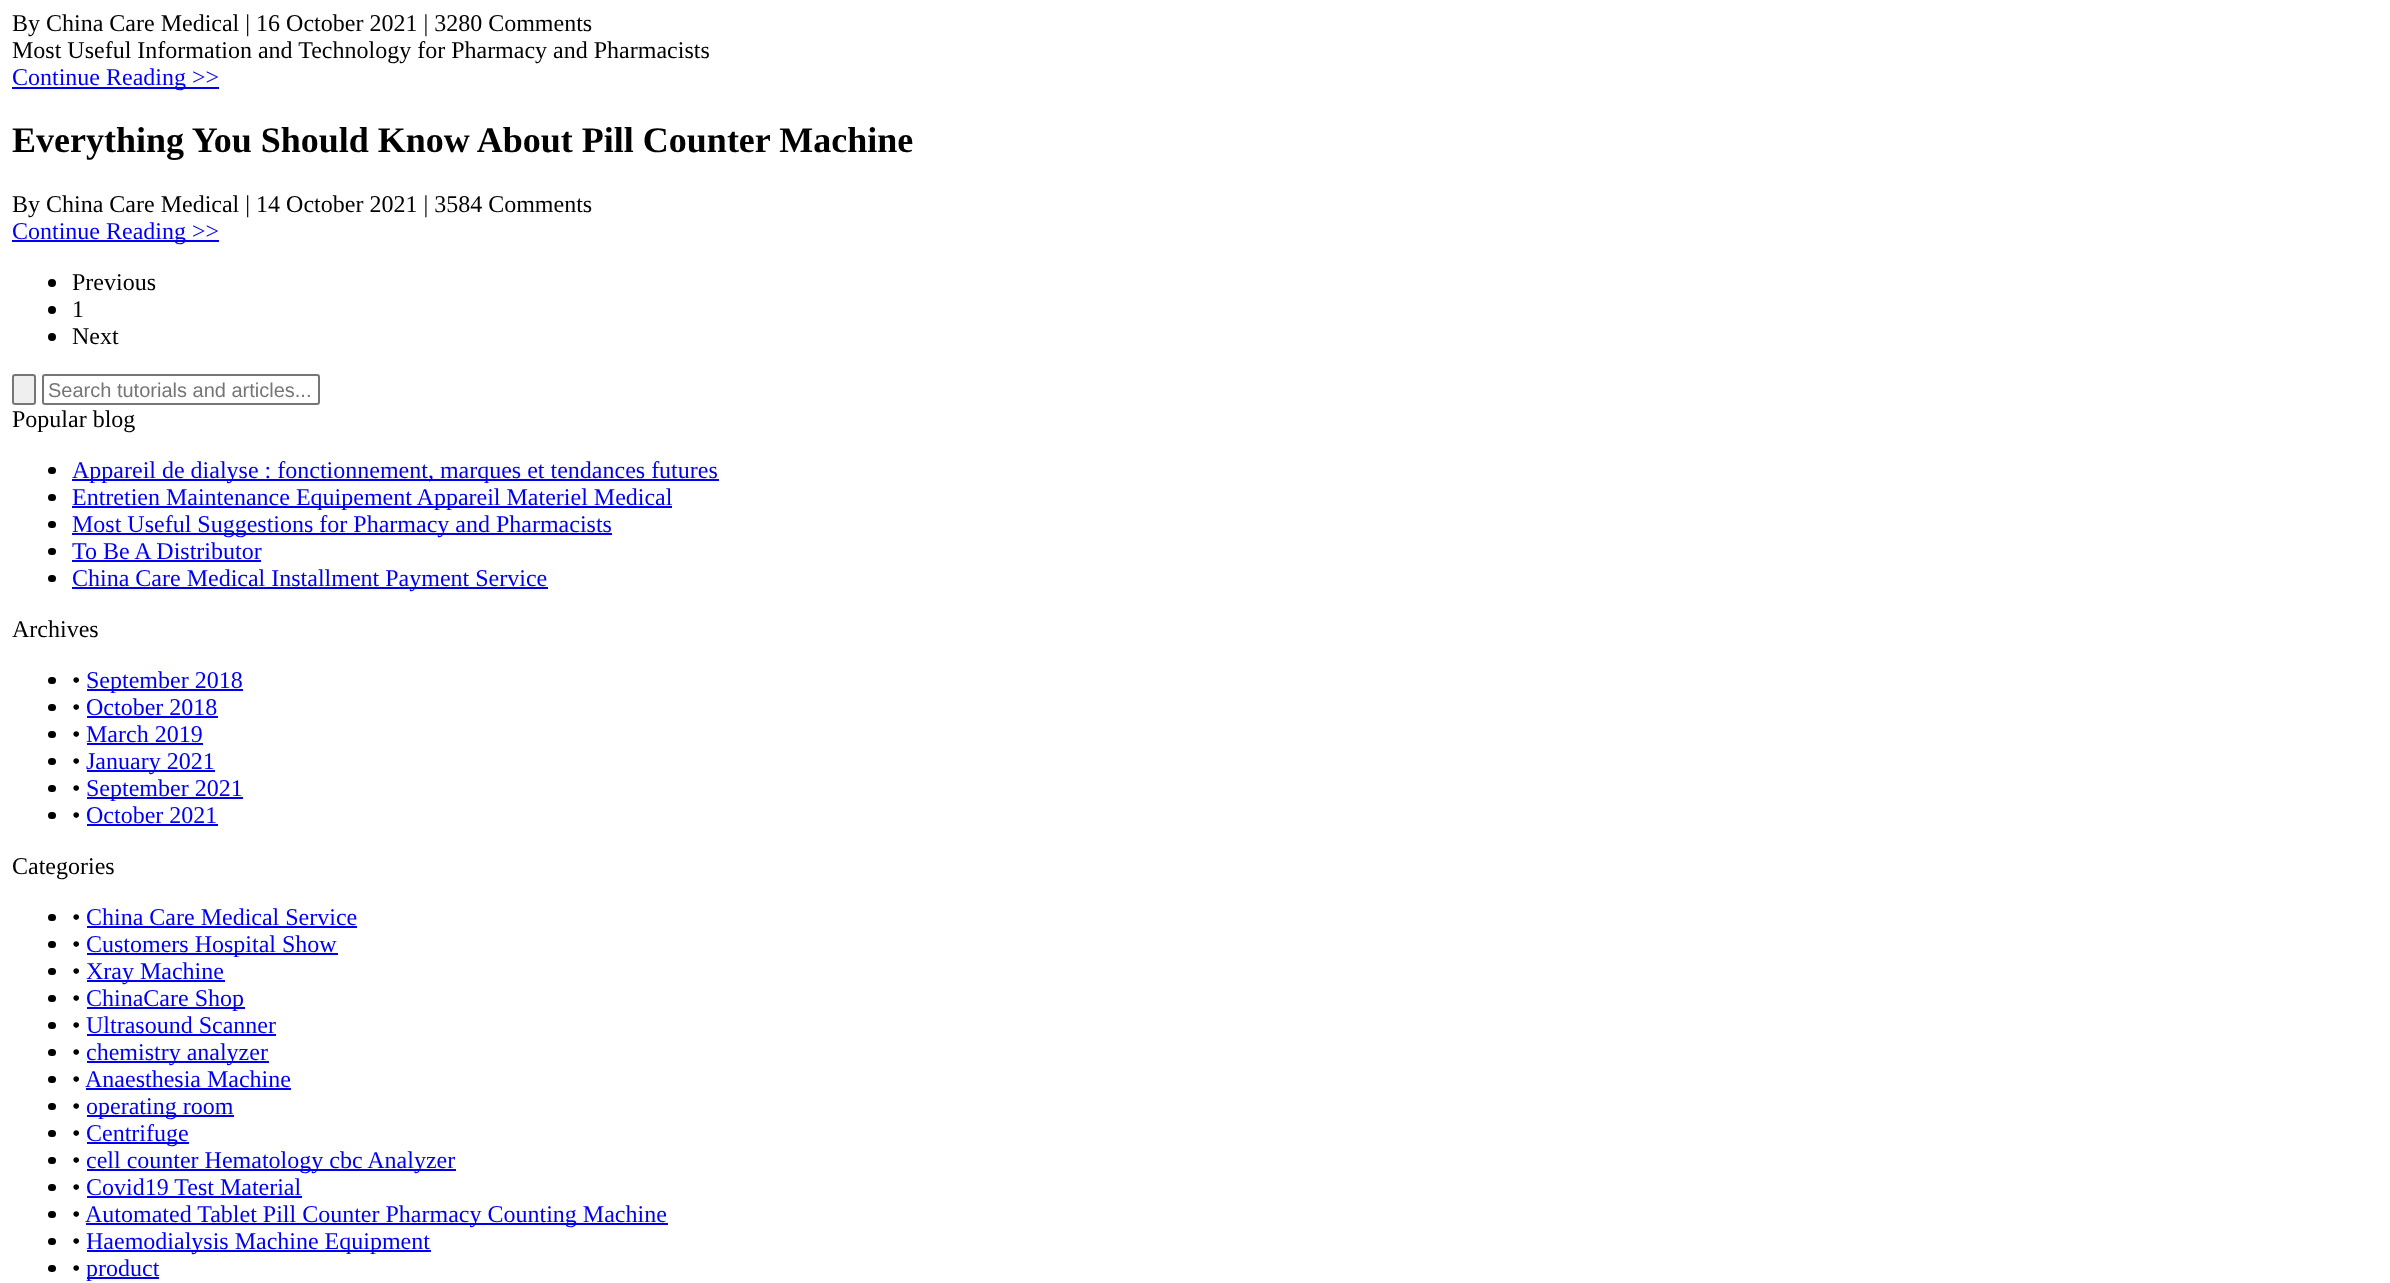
<svg xmlns="http://www.w3.org/2000/svg" width="2390" height="1283" viewBox="0 0 2390 1283">
  <rect width="100%" height="100%" fill="#ffffff"/>
  <text x="12" y="31" font-family="Liberation Serif" font-size="24" fill="#000000">By China Care Medical | 16 October 2021 | 3280 Comments</text>
  <text x="12" y="58" font-family="Liberation Serif" font-size="24" fill="#000000">Most Useful Information and Technology for Pharmacy and Pharmacists</text>
  <rect x="12" y="87" width="207" height="2" fill="#0000ee"/>
  <text x="12" y="85" font-family="Liberation Serif" font-size="24" fill="#0000ee">Continue Reading &gt;&gt;</text>
  <text x="12" y="152" font-family="Liberation Serif" font-size="36" font-weight="bold" fill="#000000">Everything You Should Know About Pill Counter Machine</text>
  <text x="12" y="212" font-family="Liberation Serif" font-size="24" fill="#000000">By China Care Medical | 14 October 2021 | 3584 Comments</text>
  <rect x="12" y="240" width="207" height="2" fill="#0000ee"/>
  <text x="12" y="239" font-family="Liberation Serif" font-size="24" fill="#0000ee">Continue Reading &gt;&gt;</text>
  <circle cx="52" cy="283" r="4" fill="#000000"/>
  <text x="72" y="290" font-family="Liberation Serif" font-size="24" fill="#000000">Previous</text>
  <circle cx="52" cy="310" r="4" fill="#000000"/>
  <text x="72" y="317" font-family="Liberation Serif" font-size="24" fill="#000000">1</text>
  <circle cx="52" cy="337" r="4" fill="#000000"/>
  <text x="72" y="344" font-family="Liberation Serif" font-size="24" fill="#000000">Next</text>
  <rect x="13" y="375" width="22" height="29" rx="2" fill="#efefef" stroke="#767676" stroke-width="2"/>
  <rect x="43" y="375" width="276" height="29" rx="2" fill="none" stroke="#767676" stroke-width="2"/>
  <text x="48" y="397" font-family="Liberation Sans" font-size="20" fill="#757575">Search tutorials and articles...</text>
  <text x="12" y="427" font-family="Liberation Serif" font-size="24" fill="#000000">Popular blog</text>
  <rect x="48" y="467" width="8" height="7" rx="3.5" fill="#000000"/>
  <rect x="72" y="479" width="647" height="2" fill="#0000ee"/>
  <text x="72" y="478" font-family="Liberation Serif" font-size="24" fill="#0000ee">Appareil de dialyse : fonctionnement, marques et tendances futures</text>
  <rect x="48" y="494" width="8" height="7" rx="3.5" fill="#000000"/>
  <rect x="72" y="506" width="600" height="2" fill="#0000ee"/>
  <text x="72" y="505" font-family="Liberation Serif" font-size="24" fill="#0000ee">Entretien Maintenance Equipement Appareil Materiel Medical</text>
  <rect x="48" y="521" width="8" height="7" rx="3.5" fill="#000000"/>
  <rect x="72" y="533" width="540" height="2" fill="#0000ee"/>
  <text x="72" y="532" font-family="Liberation Serif" font-size="24" fill="#0000ee">Most Useful Suggestions for Pharmacy and Pharmacists</text>
  <rect x="48" y="548" width="8" height="7" rx="3.5" fill="#000000"/>
  <text x="72" y="559" font-family="Liberation Serif" font-size="24" fill="#0000ee">To Be A Distributor</text>
  <rect x="72" y="560" width="189" height="2" fill="#0000ee"/>
  <rect x="48" y="575" width="8" height="7" rx="3.5" fill="#000000"/>
  <rect x="72" y="587" width="476" height="2" fill="#0000ee"/>
  <text x="72" y="586" font-family="Liberation Serif" font-size="24" fill="#0000ee">China Care Medical Installment Payment Service</text>
  <text x="12" y="637" font-family="Liberation Serif" font-size="24" fill="#000000">Archives</text>
  <rect x="48" y="677" width="8" height="7" rx="3.5" fill="#000000"/>
  <text x="72" y="688" font-family="Liberation Serif" font-size="24" fill="#000000">•</text>
  <rect x="87" y="689" width="156" height="2" fill="#0000ee"/>
  <text x="86" y="688" font-family="Liberation Serif" font-size="24" fill="#0000ee">September 2018</text>
  <rect x="48" y="704" width="8" height="7" rx="3.5" fill="#000000"/>
  <text x="72" y="715" font-family="Liberation Serif" font-size="24" fill="#000000">•</text>
  <text x="86" y="715" font-family="Liberation Serif" font-size="24" fill="#0000ee">October 2018</text>
  <rect x="87" y="716" width="131" height="2" fill="#0000ee"/>
  <rect x="48" y="731" width="8" height="7" rx="3.5" fill="#000000"/>
  <text x="72" y="742" font-family="Liberation Serif" font-size="24" fill="#000000">•</text>
  <text x="86" y="742" font-family="Liberation Serif" font-size="24" fill="#0000ee">March 2019</text>
  <rect x="87" y="743" width="116" height="2" fill="#0000ee"/>
  <rect x="48" y="758" width="8" height="7" rx="3.5" fill="#000000"/>
  <text x="72" y="769" font-family="Liberation Serif" font-size="24" fill="#000000">•</text>
  <rect x="87" y="770" width="128" height="2" fill="#0000ee"/>
  <text x="86" y="769" font-family="Liberation Serif" font-size="24" fill="#0000ee">January 2021</text>
  <rect x="48" y="785" width="8" height="7" rx="3.5" fill="#000000"/>
  <text x="72" y="796" font-family="Liberation Serif" font-size="24" fill="#000000">•</text>
  <rect x="87" y="797" width="156" height="2" fill="#0000ee"/>
  <text x="86" y="796" font-family="Liberation Serif" font-size="24" fill="#0000ee">September 2021</text>
  <rect x="48" y="812" width="8" height="7" rx="3.5" fill="#000000"/>
  <text x="72" y="823" font-family="Liberation Serif" font-size="24" fill="#000000">•</text>
  <text x="86" y="823" font-family="Liberation Serif" font-size="24" fill="#0000ee">October 2021</text>
  <rect x="87" y="824" width="131" height="2" fill="#0000ee"/>
  <text x="12" y="874" font-family="Liberation Serif" font-size="24" fill="#000000">Categories</text>
  <rect x="48" y="914" width="8" height="7" rx="3.5" fill="#000000"/>
  <text x="72" y="925" font-family="Liberation Serif" font-size="24" fill="#000000">•</text>
  <text x="86" y="925" font-family="Liberation Serif" font-size="24" fill="#0000ee">China Care Medical Service</text>
  <rect x="87" y="926" width="270" height="2" fill="#0000ee"/>
  <rect x="48" y="941" width="8" height="7" rx="3.5" fill="#000000"/>
  <text x="72" y="952" font-family="Liberation Serif" font-size="24" fill="#000000">•</text>
  <rect x="87" y="953" width="251" height="2" fill="#0000ee"/>
  <text x="86" y="952" font-family="Liberation Serif" font-size="24" fill="#0000ee">Customers Hospital Show</text>
  <rect x="48" y="968" width="8" height="7" rx="3.5" fill="#000000"/>
  <text x="72" y="979" font-family="Liberation Serif" font-size="24" fill="#000000">•</text>
  <rect x="87" y="980" width="138" height="2" fill="#0000ee"/>
  <text x="86" y="979" font-family="Liberation Serif" font-size="24" fill="#0000ee">Xray Machine</text>
  <rect x="48" y="995" width="8" height="7" rx="3.5" fill="#000000"/>
  <text x="72" y="1006" font-family="Liberation Serif" font-size="24" fill="#000000">•</text>
  <rect x="87" y="1007" width="158" height="2" fill="#0000ee"/>
  <text x="86" y="1006" font-family="Liberation Serif" font-size="24" fill="#0000ee">ChinaCare Shop</text>
  <rect x="48" y="1022" width="8" height="7" rx="3.5" fill="#000000"/>
  <text x="72" y="1033" font-family="Liberation Serif" font-size="24" fill="#000000">•</text>
  <text x="86" y="1033" font-family="Liberation Serif" font-size="24" fill="#0000ee">Ultrasound Scanner</text>
  <rect x="87" y="1034" width="189" height="2" fill="#0000ee"/>
  <rect x="48" y="1049" width="8" height="7" rx="3.5" fill="#000000"/>
  <text x="72" y="1060" font-family="Liberation Serif" font-size="24" fill="#000000">•</text>
  <rect x="87" y="1061" width="182" height="2" fill="#0000ee"/>
  <text x="86" y="1060" font-family="Liberation Serif" font-size="24" fill="#0000ee">chemistry analyzer</text>
  <rect x="48" y="1076" width="8" height="7" rx="3.5" fill="#000000"/>
  <text x="72" y="1087" font-family="Liberation Serif" font-size="24" fill="#000000">•</text>
  <text x="85" y="1087" font-family="Liberation Serif" font-size="24" fill="#0000ee">Anaesthesia Machine</text>
  <rect x="86" y="1088" width="205" height="2" fill="#0000ee"/>
  <rect x="48" y="1103" width="8" height="7" rx="3.5" fill="#000000"/>
  <text x="72" y="1114" font-family="Liberation Serif" font-size="24" fill="#000000">•</text>
  <rect x="87" y="1115" width="147" height="2" fill="#0000ee"/>
  <text x="86" y="1114" font-family="Liberation Serif" font-size="24" fill="#0000ee">operating room</text>
  <rect x="48" y="1130" width="8" height="7" rx="3.5" fill="#000000"/>
  <text x="72" y="1141" font-family="Liberation Serif" font-size="24" fill="#000000">•</text>
  <rect x="87" y="1142" width="102" height="2" fill="#0000ee"/>
  <text x="86" y="1141" font-family="Liberation Serif" font-size="24" fill="#0000ee">Centrifuge</text>
  <rect x="48" y="1157" width="8" height="7" rx="3.5" fill="#000000"/>
  <text x="72" y="1168" font-family="Liberation Serif" font-size="24" fill="#000000">•</text>
  <rect x="87" y="1169" width="369" height="2" fill="#0000ee"/>
  <text x="86" y="1168" font-family="Liberation Serif" font-size="24" fill="#0000ee">cell counter Hematology cbc Analyzer</text>
  <rect x="48" y="1184" width="8" height="7" rx="3.5" fill="#000000"/>
  <text x="72" y="1195" font-family="Liberation Serif" font-size="24" fill="#000000">•</text>
  <text x="86" y="1195" font-family="Liberation Serif" font-size="24" fill="#0000ee">Covid19 Test Material</text>
  <rect x="87" y="1196" width="215" height="2" fill="#0000ee"/>
  <rect x="48" y="1211" width="8" height="7" rx="3.5" fill="#000000"/>
  <text x="72" y="1222" font-family="Liberation Serif" font-size="24" fill="#000000">•</text>
  <rect x="86" y="1223" width="582" height="2" fill="#0000ee"/>
  <text x="85" y="1222" font-family="Liberation Serif" font-size="24" fill="#0000ee">Automated Tablet Pill Counter Pharmacy Counting Machine</text>
  <rect x="48" y="1238" width="8" height="7" rx="3.5" fill="#000000"/>
  <text x="72" y="1249" font-family="Liberation Serif" font-size="24" fill="#000000">•</text>
  <rect x="87" y="1250" width="344" height="2" fill="#0000ee"/>
  <text x="86" y="1249" font-family="Liberation Serif" font-size="24" fill="#0000ee">Haemodialysis Machine Equipment</text>
  <rect x="48" y="1265" width="8" height="7" rx="3.5" fill="#000000"/>
  <text x="72" y="1276" font-family="Liberation Serif" font-size="24" fill="#000000">•</text>
  <rect x="87" y="1277" width="72" height="2" fill="#0000ee"/>
  <text x="86" y="1276" font-family="Liberation Serif" font-size="24" fill="#0000ee">product</text>
</svg>
